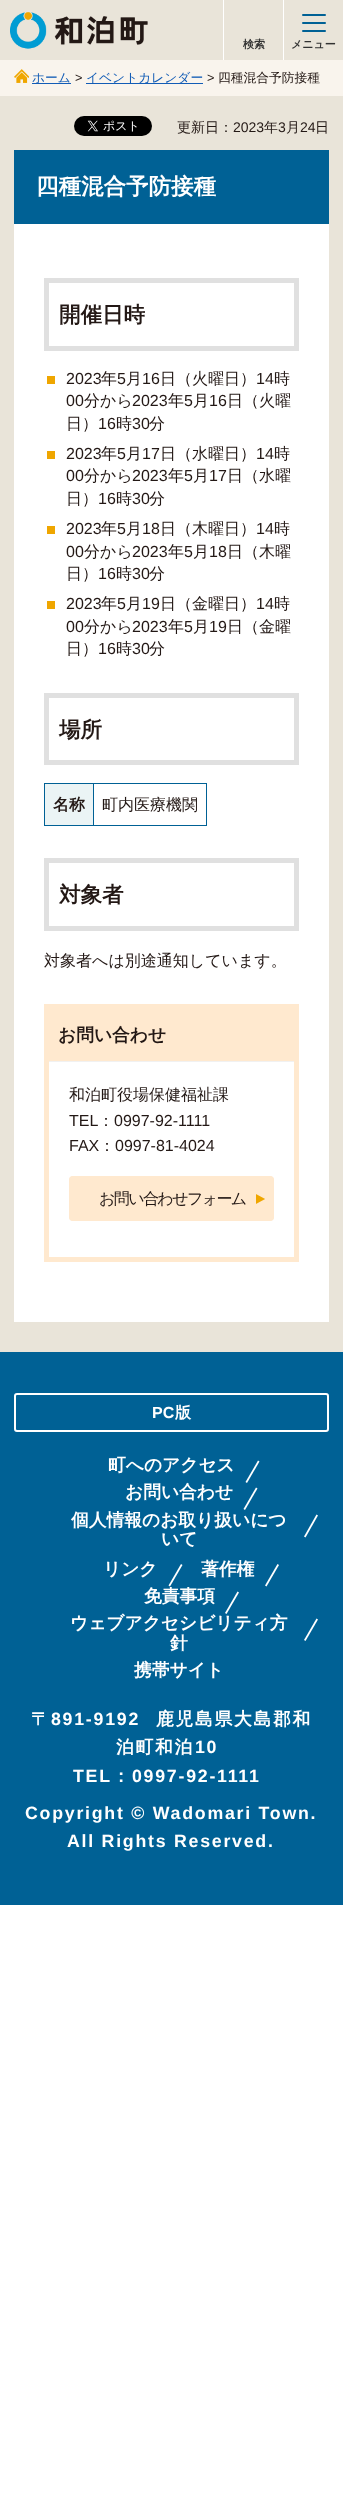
<svg xmlns="http://www.w3.org/2000/svg" width="343" height="2510" viewBox="0 0 343 2510">
  <rect width="100%" height="100%" fill="#ffffff"/>
  <rect x="0" y="0" width="343" height="1352" fill="#e9e4d9"/>
  <image x="10" y="12" width="138" height="37" href="img1.png"/>
  <rect x="223" y="0" width="1" height="60" fill="#ffffff"/>
  <text x="243" y="48" font-family="WenQuanYi Zen Hei" font-size="11" font-weight="bold" fill="#323232">検索</text>
  <rect x="283" y="0" width="1" height="60" fill="#ffffff"/>
  <rect x="302" y="30" width="24" height="2" rx="1" fill="#006195"/>
  <rect x="302" y="14" width="24" height="2" rx="1" fill="#006195"/>
  <rect x="302" y="22" width="24" height="2" rx="1" fill="#006195"/>
  <text x="291" y="48" font-family="WenQuanYi Zen Hei" font-size="11" font-weight="bold" fill="#323232">メニュー</text>
  <rect x="0" y="60" width="343" height="36" fill="#f9f4ed"/>
  <image x="14" y="69" width="15" height="14" href="img2.png"/>
  <rect x="32" y="83" width="39" height="1" fill="#125cb6"/>
  <text x="32" y="82" font-family="WenQuanYi Zen Hei" font-size="12.75" font-weight="500" fill="#125cb6">ホーム</text>
  <text x="75" y="82" font-family="Liberation Sans" font-size="12.75" fill="#231815">&gt;</text>
  <rect x="86" y="83" width="117" height="1" fill="#125cb6"/>
  <text x="86" y="82" font-family="WenQuanYi Zen Hei" font-size="12.75" font-weight="500" fill="#125cb6">イベントカレンダー</text>
  <text x="207" y="82" font-family="Liberation Sans" font-size="12.75" fill="#231815">&gt;</text>
  <text x="218" y="82" font-family="WenQuanYi Zen Hei" font-size="12.75" font-weight="500" fill="#231815">四種混合予防接種</text>
  <image x="74" y="116" width="78" height="20" href="img3.png"/>
  <text x="177" y="132" font-family="WenQuanYi Zen Hei" font-size="14" font-weight="500" fill="#231815">更新日：</text>
  <text x="233" y="132" font-family="Liberation Sans" font-size="14" fill="#231815">2023</text>
  <text x="264" y="132" font-family="WenQuanYi Zen Hei" font-size="14" font-weight="500" fill="#231815">年</text>
  <text x="278" y="132" font-family="Liberation Sans" font-size="14" fill="#231815">3</text>
  <text x="286" y="132" font-family="WenQuanYi Zen Hei" font-size="14" font-weight="500" fill="#231815">月</text>
  <text x="300" y="132" font-family="Liberation Sans" font-size="14" fill="#231815">24</text>
  <text x="315" y="132" font-family="WenQuanYi Zen Hei" font-size="14" font-weight="500" fill="#231815">日</text>
  <rect x="14" y="224" width="315" height="1098" fill="#ffffff"/>
  <rect x="14" y="150" width="315" height="74" fill="#006195"/>
  <text x="36" y="194" font-family="WenQuanYi Zen Hei" font-size="22.5" font-weight="bold" fill="#ffffff">四種混合予防接種</text>
  <rect x="46.5" y="280.5" width="250" height="68" fill="none" stroke="#e0e0e0" stroke-width="5"/>
  <text x="59" y="322" font-family="WenQuanYi Zen Hei" font-size="21.5" font-weight="bold" fill="#231815">開催日時</text>
  <rect x="47" y="376" width="8" height="8" fill="#efa600"/>
  <text x="66" y="384" font-family="Liberation Sans" font-size="16" fill="#231815">2023</text>
  <text x="101" y="384" font-family="WenQuanYi Zen Hei" font-size="16" font-weight="500" fill="#231815">年</text>
  <text x="117" y="384" font-family="Liberation Sans" font-size="16" fill="#231815">5</text>
  <text x="126" y="384" font-family="WenQuanYi Zen Hei" font-size="16" font-weight="500" fill="#231815">月</text>
  <text x="142" y="384" font-family="Liberation Sans" font-size="16" fill="#231815">16</text>
  <text x="160" y="384" font-family="WenQuanYi Zen Hei" font-size="16" font-weight="500" fill="#231815">日（火曜日）</text>
  <text x="256" y="384" font-family="Liberation Sans" font-size="16" fill="#231815">14</text>
  <text x="274" y="384" font-family="WenQuanYi Zen Hei" font-size="16" font-weight="500" fill="#231815">時</text>
  <text x="66" y="406" font-family="Liberation Sans" font-size="16" fill="#231815">00</text>
  <text x="84" y="406" font-family="WenQuanYi Zen Hei" font-size="16" font-weight="500" fill="#231815">分から</text>
  <text x="132" y="406" font-family="Liberation Sans" font-size="16" fill="#231815">2023</text>
  <text x="168" y="406" font-family="WenQuanYi Zen Hei" font-size="16" font-weight="500" fill="#231815">年</text>
  <text x="184" y="406" font-family="Liberation Sans" font-size="16" fill="#231815">5</text>
  <text x="193" y="406" font-family="WenQuanYi Zen Hei" font-size="16" font-weight="500" fill="#231815">月</text>
  <text x="209" y="406" font-family="Liberation Sans" font-size="16" fill="#231815">16</text>
  <text x="227" y="406" font-family="WenQuanYi Zen Hei" font-size="16" font-weight="500" fill="#231815">日（火曜</text>
  <text x="66" y="429" font-family="WenQuanYi Zen Hei" font-size="16" font-weight="500" fill="#231815">日）</text>
  <text x="98" y="429" font-family="Liberation Sans" font-size="16" fill="#231815">16</text>
  <text x="116" y="429" font-family="WenQuanYi Zen Hei" font-size="16" font-weight="500" fill="#231815">時</text>
  <text x="132" y="429" font-family="Liberation Sans" font-size="16" fill="#231815">30</text>
  <text x="149" y="429" font-family="WenQuanYi Zen Hei" font-size="16" font-weight="500" fill="#231815">分</text>
  <rect x="47" y="451" width="8" height="8" fill="#efa600"/>
  <text x="66" y="459" font-family="Liberation Sans" font-size="16" fill="#231815">2023</text>
  <text x="101" y="459" font-family="WenQuanYi Zen Hei" font-size="16" font-weight="500" fill="#231815">年</text>
  <text x="117" y="459" font-family="Liberation Sans" font-size="16" fill="#231815">5</text>
  <text x="126" y="459" font-family="WenQuanYi Zen Hei" font-size="16" font-weight="500" fill="#231815">月</text>
  <text x="142" y="459" font-family="Liberation Sans" font-size="16" fill="#231815">17</text>
  <text x="160" y="459" font-family="WenQuanYi Zen Hei" font-size="16" font-weight="500" fill="#231815">日（水曜日）</text>
  <text x="256" y="459" font-family="Liberation Sans" font-size="16" fill="#231815">14</text>
  <text x="274" y="459" font-family="WenQuanYi Zen Hei" font-size="16" font-weight="500" fill="#231815">時</text>
  <text x="66" y="481" font-family="Liberation Sans" font-size="16" fill="#231815">00</text>
  <text x="84" y="481" font-family="WenQuanYi Zen Hei" font-size="16" font-weight="500" fill="#231815">分から</text>
  <text x="132" y="481" font-family="Liberation Sans" font-size="16" fill="#231815">2023</text>
  <text x="168" y="481" font-family="WenQuanYi Zen Hei" font-size="16" font-weight="500" fill="#231815">年</text>
  <text x="184" y="481" font-family="Liberation Sans" font-size="16" fill="#231815">5</text>
  <text x="193" y="481" font-family="WenQuanYi Zen Hei" font-size="16" font-weight="500" fill="#231815">月</text>
  <text x="209" y="481" font-family="Liberation Sans" font-size="16" fill="#231815">17</text>
  <text x="227" y="481" font-family="WenQuanYi Zen Hei" font-size="16" font-weight="500" fill="#231815">日（水曜</text>
  <text x="66" y="504" font-family="WenQuanYi Zen Hei" font-size="16" font-weight="500" fill="#231815">日）</text>
  <text x="98" y="504" font-family="Liberation Sans" font-size="16" fill="#231815">16</text>
  <text x="116" y="504" font-family="WenQuanYi Zen Hei" font-size="16" font-weight="500" fill="#231815">時</text>
  <text x="132" y="504" font-family="Liberation Sans" font-size="16" fill="#231815">30</text>
  <text x="149" y="504" font-family="WenQuanYi Zen Hei" font-size="16" font-weight="500" fill="#231815">分</text>
  <rect x="47" y="526" width="8" height="8" fill="#efa600"/>
  <text x="66" y="534" font-family="Liberation Sans" font-size="16" fill="#231815">2023</text>
  <text x="101" y="534" font-family="WenQuanYi Zen Hei" font-size="16" font-weight="500" fill="#231815">年</text>
  <text x="117" y="534" font-family="Liberation Sans" font-size="16" fill="#231815">5</text>
  <text x="126" y="534" font-family="WenQuanYi Zen Hei" font-size="16" font-weight="500" fill="#231815">月</text>
  <text x="142" y="534" font-family="Liberation Sans" font-size="16" fill="#231815">18</text>
  <text x="160" y="534" font-family="WenQuanYi Zen Hei" font-size="16" font-weight="500" fill="#231815">日（木曜日）</text>
  <text x="256" y="534" font-family="Liberation Sans" font-size="16" fill="#231815">14</text>
  <text x="274" y="534" font-family="WenQuanYi Zen Hei" font-size="16" font-weight="500" fill="#231815">時</text>
  <text x="66" y="557" font-family="Liberation Sans" font-size="16" fill="#231815">00</text>
  <text x="84" y="557" font-family="WenQuanYi Zen Hei" font-size="16" font-weight="500" fill="#231815">分から</text>
  <text x="132" y="557" font-family="Liberation Sans" font-size="16" fill="#231815">2023</text>
  <text x="168" y="557" font-family="WenQuanYi Zen Hei" font-size="16" font-weight="500" fill="#231815">年</text>
  <text x="184" y="557" font-family="Liberation Sans" font-size="16" fill="#231815">5</text>
  <text x="193" y="557" font-family="WenQuanYi Zen Hei" font-size="16" font-weight="500" fill="#231815">月</text>
  <text x="209" y="557" font-family="Liberation Sans" font-size="16" fill="#231815">18</text>
  <text x="227" y="557" font-family="WenQuanYi Zen Hei" font-size="16" font-weight="500" fill="#231815">日（木曜</text>
  <text x="66" y="579" font-family="WenQuanYi Zen Hei" font-size="16" font-weight="500" fill="#231815">日）</text>
  <text x="98" y="579" font-family="Liberation Sans" font-size="16" fill="#231815">16</text>
  <text x="116" y="579" font-family="WenQuanYi Zen Hei" font-size="16" font-weight="500" fill="#231815">時</text>
  <text x="132" y="579" font-family="Liberation Sans" font-size="16" fill="#231815">30</text>
  <text x="149" y="579" font-family="WenQuanYi Zen Hei" font-size="16" font-weight="500" fill="#231815">分</text>
  <rect x="47" y="601" width="8" height="8" fill="#efa600"/>
  <text x="66" y="609" font-family="Liberation Sans" font-size="16" fill="#231815">2023</text>
  <text x="101" y="609" font-family="WenQuanYi Zen Hei" font-size="16" font-weight="500" fill="#231815">年</text>
  <text x="117" y="609" font-family="Liberation Sans" font-size="16" fill="#231815">5</text>
  <text x="126" y="609" font-family="WenQuanYi Zen Hei" font-size="16" font-weight="500" fill="#231815">月</text>
  <text x="142" y="609" font-family="Liberation Sans" font-size="16" fill="#231815">19</text>
  <text x="160" y="609" font-family="WenQuanYi Zen Hei" font-size="16" font-weight="500" fill="#231815">日（金曜日）</text>
  <text x="256" y="609" font-family="Liberation Sans" font-size="16" fill="#231815">14</text>
  <text x="274" y="609" font-family="WenQuanYi Zen Hei" font-size="16" font-weight="500" fill="#231815">時</text>
  <text x="66" y="632" font-family="Liberation Sans" font-size="16" fill="#231815">00</text>
  <text x="84" y="632" font-family="WenQuanYi Zen Hei" font-size="16" font-weight="500" fill="#231815">分から</text>
  <text x="132" y="632" font-family="Liberation Sans" font-size="16" fill="#231815">2023</text>
  <text x="168" y="632" font-family="WenQuanYi Zen Hei" font-size="16" font-weight="500" fill="#231815">年</text>
  <text x="184" y="632" font-family="Liberation Sans" font-size="16" fill="#231815">5</text>
  <text x="193" y="632" font-family="WenQuanYi Zen Hei" font-size="16" font-weight="500" fill="#231815">月</text>
  <text x="209" y="632" font-family="Liberation Sans" font-size="16" fill="#231815">19</text>
  <text x="227" y="632" font-family="WenQuanYi Zen Hei" font-size="16" font-weight="500" fill="#231815">日（金曜</text>
  <text x="66" y="654" font-family="WenQuanYi Zen Hei" font-size="16" font-weight="500" fill="#231815">日）</text>
  <text x="98" y="654" font-family="Liberation Sans" font-size="16" fill="#231815">16</text>
  <text x="116" y="654" font-family="WenQuanYi Zen Hei" font-size="16" font-weight="500" fill="#231815">時</text>
  <text x="132" y="654" font-family="Liberation Sans" font-size="16" fill="#231815">30</text>
  <text x="149" y="654" font-family="WenQuanYi Zen Hei" font-size="16" font-weight="500" fill="#231815">分</text>
  <rect x="46.5" y="695.5" width="250" height="67" fill="none" stroke="#e0e0e0" stroke-width="5"/>
  <text x="59" y="737" font-family="WenQuanYi Zen Hei" font-size="21.5" font-weight="bold" fill="#231815">場所</text>
  <rect x="44" y="783" width="163" height="1" fill="#006195"/>
  <rect x="206" y="783" width="1" height="43" fill="#006195"/>
  <rect x="44" y="825" width="163" height="1" fill="#006195"/>
  <rect x="44" y="783" width="1" height="43" fill="#006195"/>
  <rect x="45" y="784" width="48" height="41" fill="#ebf4f5"/>
  <text x="53" y="810" font-family="WenQuanYi Zen Hei" font-size="16" font-weight="bold" fill="#231815">名称</text>
  <rect x="93" y="783" width="1" height="43" fill="#006195"/>
  <text x="102" y="810" font-family="WenQuanYi Zen Hei" font-size="16" font-weight="500" fill="#231815">町内医療機関</text>
  <rect x="46.5" y="860.5" width="250" height="68" fill="none" stroke="#e0e0e0" stroke-width="5"/>
  <text x="59" y="902" font-family="WenQuanYi Zen Hei" font-size="21.5" font-weight="bold" fill="#231815">対象者</text>
  <text x="44" y="966" font-family="WenQuanYi Zen Hei" font-size="16" font-weight="500" fill="#231815">対象者へは別途通知しています。</text>
  <rect x="46.5" y="1006.5" width="250" height="253" fill="none" stroke="#ffe9cf" stroke-width="5"/>
  <rect x="49" y="1009" width="245" height="52" fill="#ffe9cf"/>
  <rect x="49" y="1061" width="245" height="1" fill="#f1f1f1"/>
  <text x="58" y="1041" font-family="WenQuanYi Zen Hei" font-size="17.75" font-weight="bold" fill="#231815">お問い合わせ</text>
  <text x="69" y="1100" font-family="WenQuanYi Zen Hei" font-size="16" font-weight="500" fill="#231815">和泊町役場保健福祉課</text>
  <text x="69" y="1126" font-family="Liberation Sans" font-size="16" fill="#231815">TEL</text>
  <text x="98" y="1126" font-family="WenQuanYi Zen Hei" font-size="16" font-weight="500" fill="#231815">：</text>
  <text x="114" y="1126" font-family="Liberation Sans" font-size="16" fill="#231815">0997-92-1111</text>
  <text x="69" y="1151" font-family="Liberation Sans" font-size="16" fill="#231815">FAX</text>
  <text x="99" y="1151" font-family="WenQuanYi Zen Hei" font-size="16" font-weight="500" fill="#231815">：</text>
  <text x="115" y="1151" font-family="Liberation Sans" font-size="16" fill="#231815">0997-81-4024</text>
  <rect x="69" y="1176" width="205" height="45" rx="4" fill="#ffe9cf"/>
  <image x="256" y="1194" width="9" height="10" href="img4.png"/>
  <rect x="69.5" y="1176.5" width="204" height="44" rx="3.5" fill="none" stroke="#ffe9cf"/>
  <text x="99" y="1204" font-family="WenQuanYi Zen Hei" font-size="16" font-weight="500" letter-spacing="-1.6" fill="#231815">お問い合わせフォーム</text>
  <rect x="0" y="1352" width="343" height="553" fill="#006195"/>
  <rect x="15" y="1394" width="313" height="37" rx="2" fill="none" stroke="#ffffff" stroke-width="2"/>
  <text x="152" y="1418" font-family="Liberation Sans" font-size="16" font-weight="bold" fill="#ffffff">PC</text>
  <text x="175" y="1418" font-family="WenQuanYi Zen Hei" font-size="16" font-weight="bold" fill="#ffffff">版</text>
  <text x="108" y="1471" font-family="WenQuanYi Zen Hei" font-size="17.75" font-weight="bold" fill="#ffffff">町へのアクセス</text>
  <path d="M245.5 1482L258 1460.5L259.5 1461.5L247 1483Z" fill="#ffffff"/>
  <text x="125" y="1498" font-family="WenQuanYi Zen Hei" font-size="17.75" font-weight="bold" fill="#ffffff">お問い合わせ</text>
  <path d="M243.5 1509L256 1487.5L257.5 1488.5L245 1510Z" fill="#ffffff"/>
  <text x="71" y="1526" font-family="WenQuanYi Zen Hei" font-size="17.75" font-weight="bold" fill="#ffffff">個人情報のお取り扱いにつ</text>
  <text x="161" y="1545" font-family="WenQuanYi Zen Hei" font-size="17.75" font-weight="bold" fill="#ffffff">いて</text>
  <path d="M304 1536.5L316.5 1514.5L318 1515.5L305.5 1537.5Z" fill="#ffffff"/>
  <text x="103" y="1575" font-family="WenQuanYi Zen Hei" font-size="17.75" font-weight="bold" fill="#ffffff">リンク</text>
  <path d="M168.5 1585.5L181 1564L182.5 1565L170 1586.5Z" fill="#ffffff"/>
  <text x="201" y="1575" font-family="WenQuanYi Zen Hei" font-size="17.75" font-weight="bold" fill="#ffffff">著作権</text>
  <path d="M265 1585.5L277.5 1564L279 1565L266.5 1586.5Z" fill="#ffffff"/>
  <text x="144" y="1602" font-family="WenQuanYi Zen Hei" font-size="17.75" font-weight="bold" fill="#ffffff">免責事項</text>
  <path d="M225 1613L237.5 1591.5L239 1592.5L226.5 1614Z" fill="#ffffff"/>
  <text x="70" y="1629" font-family="WenQuanYi Zen Hei" font-size="17.75" font-weight="bold" fill="#ffffff">ウェブアクセシビリティ方</text>
  <text x="170" y="1649" font-family="WenQuanYi Zen Hei" font-size="17.75" font-weight="bold" fill="#ffffff">針</text>
  <path d="M304 1640L316.5 1618.5L318 1619.5L305.5 1641Z" fill="#ffffff"/>
  <text x="134" y="1676" font-family="WenQuanYi Zen Hei" font-size="17.75" font-weight="bold" fill="#ffffff">携帯サイト</text>
  <text x="31" y="1725" font-family="WenQuanYi Zen Hei" font-size="17.75" font-weight="bold" letter-spacing="1.75" fill="#ffffff">〒</text>
  <text x="51" y="1725" font-family="Liberation Sans" font-size="17.75" font-weight="bold" letter-spacing="1.75" fill="#ffffff">891-9192</text>
  <text x="156" y="1725" font-family="WenQuanYi Zen Hei" font-size="17.75" font-weight="bold" letter-spacing="1.75" fill="#ffffff">鹿児島県大島郡和</text>
  <text x="116" y="1753" font-family="WenQuanYi Zen Hei" font-size="17.75" font-weight="bold" letter-spacing="1.75" fill="#ffffff">泊町和泊</text>
  <text x="195" y="1753" font-family="Liberation Sans" font-size="17.75" font-weight="bold" letter-spacing="1.75" fill="#ffffff">10</text>
  <text x="73" y="1782" font-family="Liberation Sans" font-size="17.75" font-weight="bold" letter-spacing="1.75" fill="#ffffff">TEL</text>
  <text x="112" y="1782" font-family="WenQuanYi Zen Hei" font-size="17.75" font-weight="bold" letter-spacing="1.75" fill="#ffffff">：</text>
  <text x="132" y="1782" font-family="Liberation Sans" font-size="17.75" font-weight="bold" letter-spacing="1.75" fill="#ffffff">0997-92-1111</text>
  <text x="25" y="1819" font-family="Liberation Sans" font-size="17.75" font-weight="bold" letter-spacing="1.75" fill="#ffffff">Copyright © Wadomari Town.</text>
  <text x="67" y="1847" font-family="Liberation Sans" font-size="17.75" font-weight="bold" letter-spacing="1.75" fill="#ffffff">All Rights Reserved.</text>
</svg>
